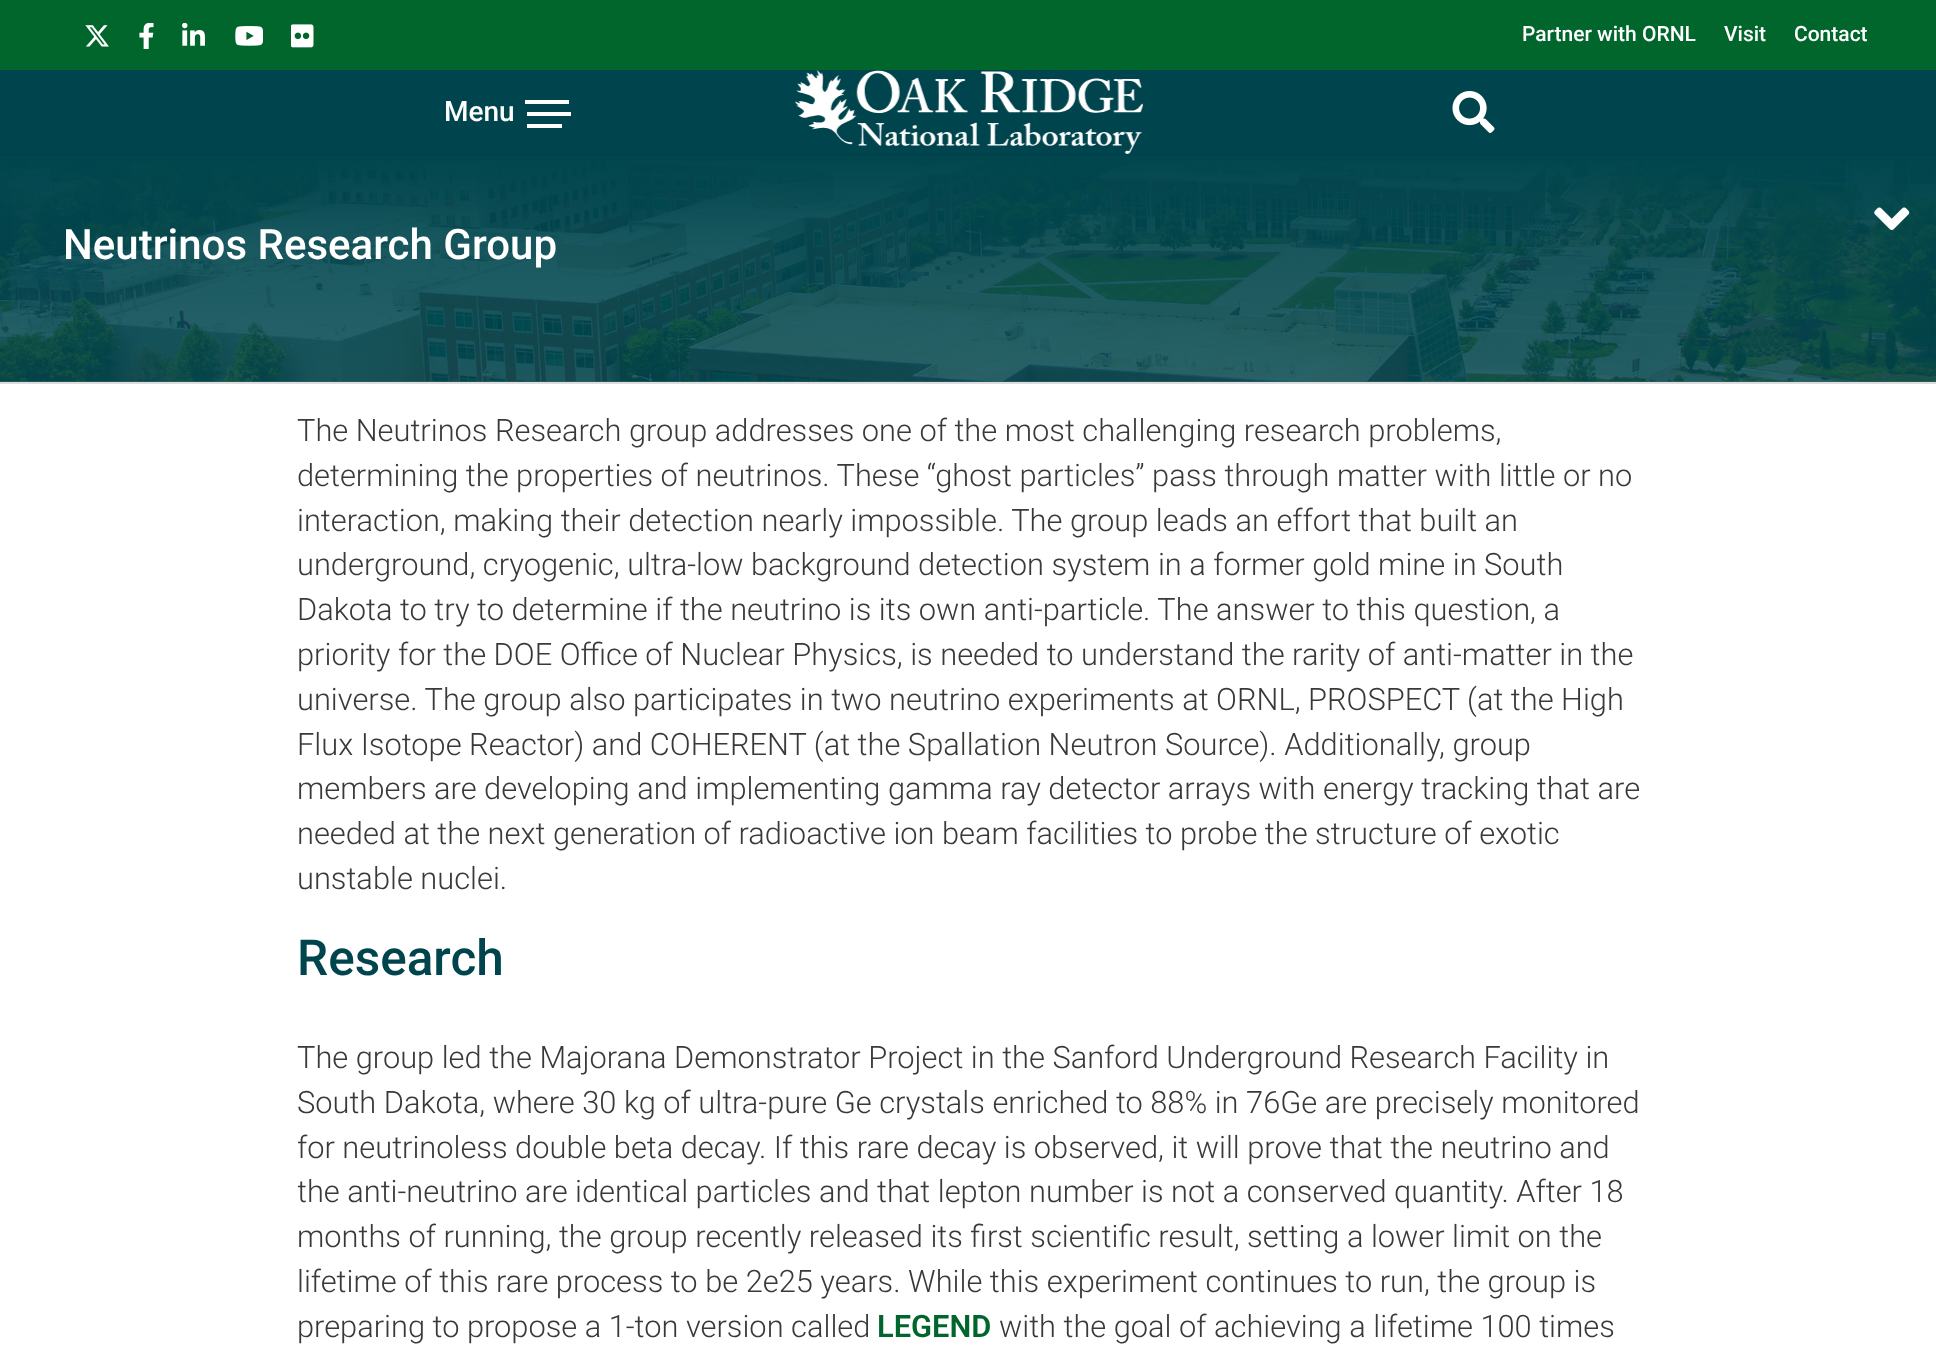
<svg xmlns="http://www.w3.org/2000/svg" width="1936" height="1355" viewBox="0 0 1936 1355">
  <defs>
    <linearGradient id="g1" gradientUnits="userSpaceOnUse" x1="969" y1="0" x2="969" y2="382"><stop offset="0" stop-color="#00454d"/><stop offset="0.4" stop-color="#00454d"/><stop offset="0.65" stop-color="#00454d" stop-opacity="0.89"/><stop offset="1" stop-color="#00454d" stop-opacity="0.83"/></linearGradient>
    <clipPath id="clip1"><rect x="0" y="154" width="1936" height="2"/></clipPath>
    <filter id="blur1" x="-50%" y="-200%" width="200%" height="500%"><feGaussianBlur stdDeviation="2"/></filter>
    <clipPath id="clip2"><rect x="298" y="410" width="1344" height="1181"/></clipPath>
  </defs>
  <rect width="100%" height="100%" fill="#ffffff"/>
  <image x="0" y="158" width="1936" height="224" href="img1.png"/>
  <rect x="0" y="70" width="1936" height="312" fill="url(#g1)"/>
  <g clip-path="url(#clip1)">
    <rect x="0" y="70" width="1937" height="84" fill="#000000" fill-opacity="0.14" filter="url(#blur1)"/>
  </g>
  <rect x="0" y="0" width="1936" height="70" fill="#00662c"/>
  <image x="85" y="25" width="24" height="22" href="img2.png"/>
  <image x="139" y="23" width="15" height="26" href="img3.png"/>
  <image x="182" y="23" width="23" height="23" href="img4.png"/>
  <image x="235" y="26" width="28" height="20" href="img5.png"/>
  <image x="291" y="24" width="23" height="24" href="img6.png"/>
  <text x="1522" y="41" font-family="Roboto" font-size="21" font-weight="500" fill="#ffffff">Partner with ORNL</text>
  <text x="1724" y="41" font-family="Roboto" font-size="21" font-weight="500" fill="#ffffff">Visit</text>
  <text x="1794" y="41" font-family="Roboto" font-size="21" font-weight="500" fill="#ffffff">Contact</text>
  <text x="444" y="121" font-family="Roboto" font-size="28" font-weight="500" fill="#ffffff">Menu</text>
  <rect x="525" y="100" width="44" height="4" fill="#ffffff"/>
  <rect x="527" y="112" width="44" height="4" fill="#ffffff"/>
  <rect x="527" y="124" width="35" height="4" fill="#ffffff"/>
  <image x="794" y="70" width="349" height="84" href="img7.png"/>
  <image x="1452" y="91" width="43" height="42" href="img8.png"/>
  <image x="1874" y="207" width="36" height="23" href="img9.png"/>
  <text x="63" y="259" font-family="Roboto" font-size="42" font-weight="500" fill="#ffffff">Neutrinos Research Group</text>
  <rect x="0" y="382" width="1936" height="2" fill="#dbdcdb"/>
  <text x="297" y="441" font-family="Roboto" font-size="30.8" font-weight="300" fill="#373a36">The Neutrinos Research group addresses one of the most challenging research problems,</text>
  <text x="297" y="486" font-family="Roboto" font-size="30.8" font-weight="300" fill="#373a36">determining the properties of neutrinos. These “ghost particles” pass through matter with little or no</text>
  <text x="297" y="531" font-family="Roboto" font-size="30.8" font-weight="300" fill="#373a36">interaction, making their detection nearly impossible. The group leads an effort that built an</text>
  <text x="297" y="575" font-family="Roboto" font-size="30.8" font-weight="300" fill="#373a36">underground, cryogenic, ultra-low background detection system in a former gold mine in South</text>
  <text x="297" y="620" font-family="Roboto" font-size="30.8" font-weight="300" fill="#373a36">Dakota to try to determine if the neutrino is its own anti-particle. The answer to this question, a</text>
  <text x="297" y="665" font-family="Roboto" font-size="30.8" font-weight="300" fill="#373a36">priority for the DOE Office of Nuclear Physics, is needed to understand the rarity of anti-matter in the</text>
  <text x="297" y="710" font-family="Roboto" font-size="30.8" font-weight="300" fill="#373a36">universe. The group also participates in two neutrino experiments at ORNL, PROSPECT (at the High</text>
  <text x="297" y="755" font-family="Roboto" font-size="30.8" font-weight="300" fill="#373a36">Flux Isotope Reactor) and COHERENT (at the Spallation Neutron Source). Additionally, group</text>
  <text x="297" y="799" font-family="Roboto" font-size="30.8" font-weight="300" fill="#373a36">members are developing and implementing gamma ray detector arrays with energy tracking that are</text>
  <text x="297" y="844" font-family="Roboto" font-size="30.8" font-weight="300" fill="#373a36">needed at the next generation of radioactive ion beam facilities to probe the structure of exotic</text>
  <text x="297" y="889" font-family="Roboto" font-size="30.8" font-weight="300" fill="#373a36">unstable nuclei.</text>
  <text x="297" y="975" font-family="Roboto" font-size="49.5" font-weight="500" fill="#00454d">Research</text>
  <text x="297" y="1068" font-family="Roboto" font-size="30.8" font-weight="300" fill="#373a36">The group led the Majorana Demonstrator Project in the Sanford Underground Research Facility in</text>
  <text x="297" y="1113" font-family="Roboto" font-size="30.8" font-weight="300" fill="#373a36">South Dakota, where 30 kg of ultra-pure Ge crystals enriched to 88% in 76Ge are precisely monitored</text>
  <g clip-path="url(#clip2)">
    <text x="297" y="1158" font-family="Roboto" font-size="30.8" font-weight="300" fill="#373a36">for neutrinoless double beta decay. If this rare decay is observed, it will prove that the neutrino and</text>
    <text x="297" y="1202" font-family="Roboto" font-size="30.8" font-weight="300" fill="#373a36">the anti-neutrino are identical particles and that lepton number is not a conserved quantity. After 18</text>
  </g>
  <text x="297" y="1247" font-family="Roboto" font-size="30.8" font-weight="300" fill="#373a36">months of running, the group recently released its first scientific result, setting a lower limit on the</text>
  <text x="297" y="1292" font-family="Roboto" font-size="30.8" font-weight="300" fill="#373a36">lifetime of this rare process to be 2e25 years. While this experiment continues to run, the group is</text>
  <text x="297" y="1337" font-family="Roboto" font-size="30.8" font-weight="300" fill="#373a36">preparing to propose a 1-ton version called</text>
  <text x="877" y="1337" font-family="Roboto" font-size="30.8" font-weight="600" fill="#00662c">LEGEND</text>
  <text x="999" y="1337" font-family="Roboto" font-size="30.8" font-weight="300" fill="#373a36">with the goal of achieving a lifetime 100 times</text>
</svg>
